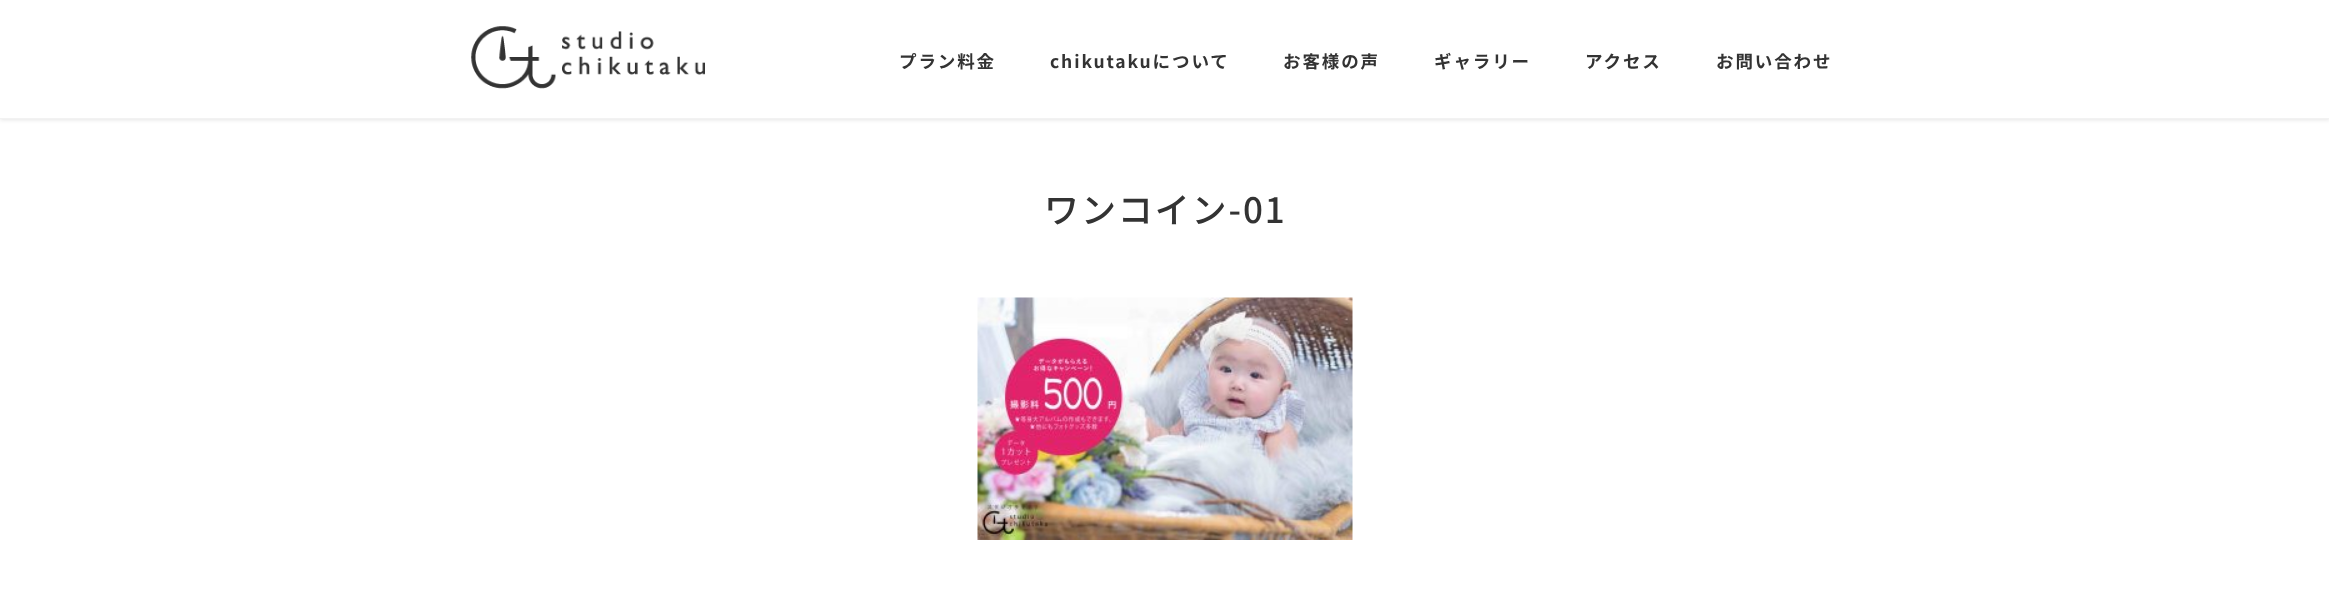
<svg xmlns="http://www.w3.org/2000/svg" width="2329" height="598" viewBox="0 0 2329 598">
  <defs>
    <filter id="blur1" x="-50%" y="-200%" width="200%" height="500%"><feGaussianBlur stdDeviation="2"/></filter>
  </defs>
  <rect width="100%" height="100%" fill="#ffffff"/>
  <rect x="0" y="1" width="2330" height="119" fill="#000000" fill-opacity="0.1" filter="url(#blur1)"/>
  <rect x="0" y="0" width="2329" height="118" fill="#ffffff"/>
  <rect x="0" y="118" width="2329" height="1" fill="#f2f2f2"/>
  <image x="471" y="26" width="234" height="63" href="img1.png"/>
  <text x="899" y="68" font-family="Noto Sans JP" font-size="17.5" font-weight="bold" letter-spacing="1.9" fill="#333333">プラン料金</text>
  <text x="1050" y="68" font-family="Noto Sans JP" font-size="17.5" font-weight="bold" letter-spacing="1.9" fill="#333333">chikutakuについて</text>
  <text x="1283" y="68" font-family="Noto Sans JP" font-size="17.5" font-weight="bold" letter-spacing="1.9" fill="#333333">お客様の声</text>
  <text x="1434" y="68" font-family="Noto Sans JP" font-size="17.5" font-weight="bold" letter-spacing="1.9" fill="#333333">ギャラリー</text>
  <text x="1585" y="68" font-family="Noto Sans JP" font-size="17.5" font-weight="bold" letter-spacing="1.9" fill="#333333">アクセス</text>
  <text x="1716" y="68" font-family="Noto Sans JP" font-size="17.5" font-weight="bold" letter-spacing="1.9" fill="#333333">お問い合わせ</text>
  <text x="1044" y="223" font-family="Noto Sans JP" font-size="35" font-weight="500" letter-spacing="1.9" fill="#333333">ワンコイン-01</text>
  <image x="977" y="297" width="376" height="243" href="img2.png"/>
</svg>
